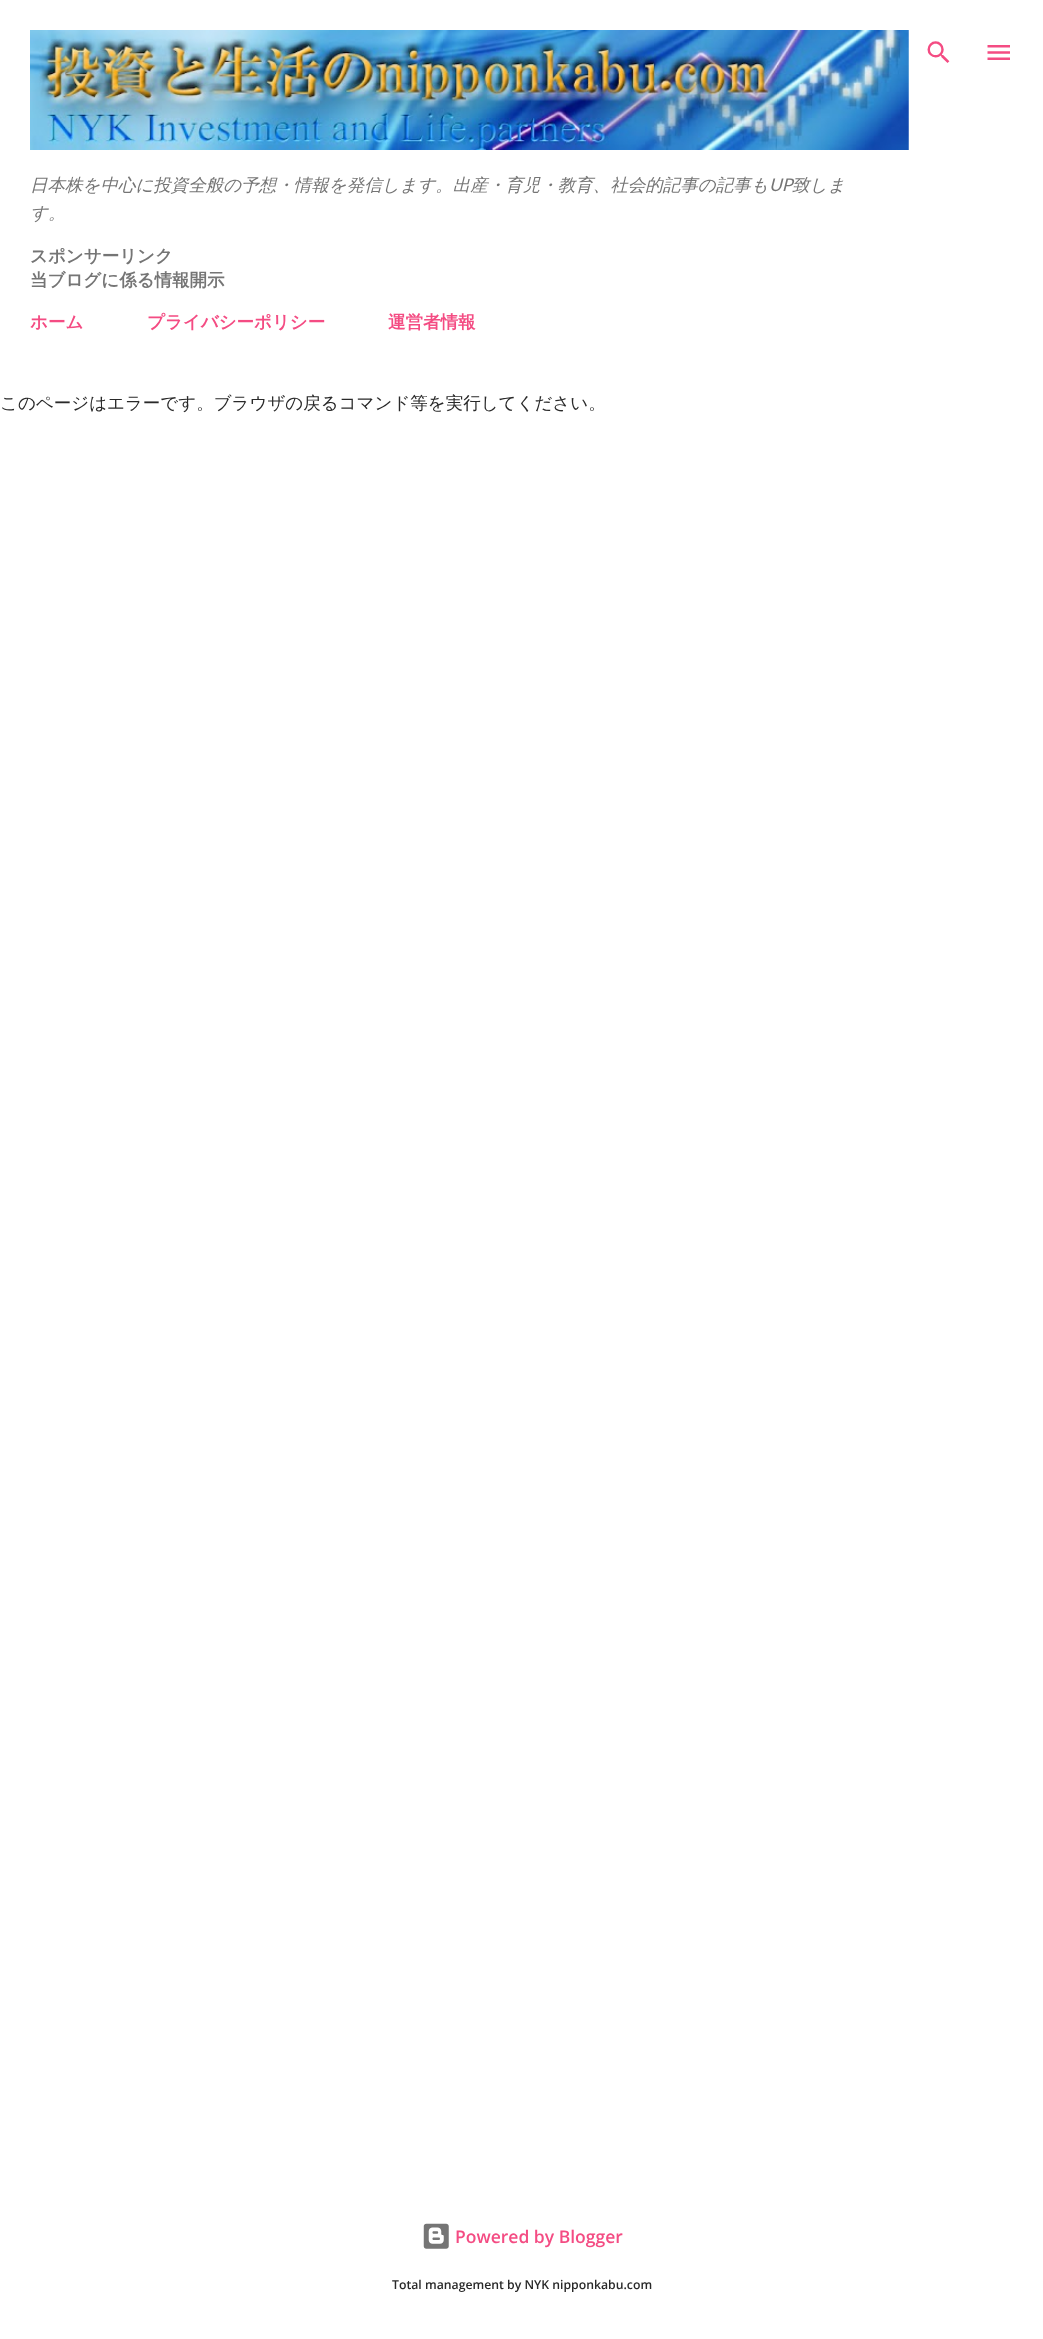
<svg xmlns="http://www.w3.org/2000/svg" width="1043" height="2339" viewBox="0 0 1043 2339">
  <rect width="100%" height="100%" fill="#ffffff"/>
  <image x="987" y="45" width="23" height="15" href="img1.png"/>
  <image x="927" y="41" width="23" height="22" href="img2.png"/>
  <image x="30" y="30" width="879" height="120" href="img3.png"/>
  <text x="30" y="191" font-family="WenQuanYi Zen Hei" font-size="17.5" font-weight="500" font-style="italic" fill="#757575">日本株を中心に投資全般の予想・情報を発信します。出産・育児・教育、社会的記事の記事も</text>
  <text x="769" y="191" font-family="Lato" font-size="17.5" font-style="italic" fill="#757575">UP</text>
  <text x="792" y="191" font-family="WenQuanYi Zen Hei" font-size="17.5" font-weight="500" font-style="italic" fill="#757575">致しま</text>
  <text x="30" y="219" font-family="WenQuanYi Zen Hei" font-size="17.5" font-weight="500" font-style="italic" fill="#757575">す。</text>
  <text x="30" y="262" font-family="WenQuanYi Zen Hei" font-size="17.5" font-weight="bold" fill="#757575">スポンサーリンク</text>
  <text x="30" y="286" font-family="WenQuanYi Zen Hei" font-size="17.5" font-weight="bold" fill="#757575">当ブログに係る情報開示</text>
  <text x="30" y="328" font-family="WenQuanYi Zen Hei" font-size="17.5" font-weight="bold" fill="#f44c83">ホーム</text>
  <text x="147" y="328" font-family="WenQuanYi Zen Hei" font-size="17.5" font-weight="bold" fill="#f44c83">プライバシーポリシー</text>
  <text x="388" y="328" font-family="WenQuanYi Zen Hei" font-size="17.5" font-weight="bold" fill="#f44c83">運営者情報</text>
  <text x="0" y="409" font-family="WenQuanYi Zen Hei" font-size="17.5" font-weight="500" fill="#292929">このページはエラーです。ブラウザの戻るコマンド等を実行してください。</text>
  <image x="423" y="2223" width="26" height="26" href="img4.png"/>
  <text x="455" y="2243" font-family="Open Sans" font-size="17.5" font-weight="600" fill="#f44c83">Powered by Blogger</text>
  <text x="392" y="2289" font-family="Open Sans" font-size="12.25" font-weight="600" fill="#292929">Total management by NYK nipponkabu.com</text>
</svg>
